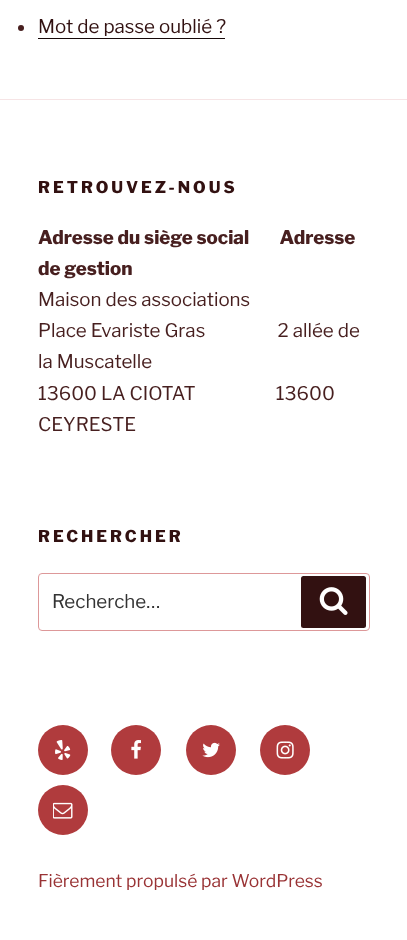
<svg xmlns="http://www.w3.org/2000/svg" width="407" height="940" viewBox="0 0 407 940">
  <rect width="100%" height="100%" fill="#ffffff"/>
  <circle cx="21" cy="28" r="3" fill="#471f1f"/>
  <text x="38" y="33" font-family="Libre Franklin" font-size="18.75" font-weight="100" fill="#321111">Mot de passe oublié ?</text>
  <rect x="38" y="38" width="187" height="1" fill="#170808"/>
  <rect x="0" y="99" width="407" height="1" fill="#f6e4e5"/>
  <text x="38" y="193" font-family="'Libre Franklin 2'" font-size="16.25" font-weight="100" letter-spacing="3" fill="#321111">RETROUVEZ-NOUS</text>
  <text x="38" y="244" font-family="'Libre Franklin 2'" font-size="18.75" font-weight="100" fill="#471f1f" xml:space="preserve">Adresse du siège social        Adresse</text>
  <text x="38" y="275" font-family="'Libre Franklin 2'" font-size="18.75" font-weight="100" fill="#471f1f">de gestion</text>
  <text x="38" y="306" font-family="Libre Franklin" font-size="18.75" font-weight="100" fill="#471f1f">Maison des associations</text>
  <text x="38" y="337" font-family="Libre Franklin" font-size="18.75" font-weight="100" fill="#471f1f" xml:space="preserve">Place Evariste Gras                  2 allée de</text>
  <text x="38" y="368" font-family="Libre Franklin" font-size="18.75" font-weight="100" fill="#471f1f">la Muscatelle</text>
  <text x="38" y="400" font-family="Libre Franklin" font-size="18.75" font-weight="100" fill="#471f1f" xml:space="preserve">13600 LA CIOTAT                    13600</text>
  <text x="38" y="431" font-family="Libre Franklin" font-size="18.75" font-weight="100" fill="#471f1f">CEYRESTE</text>
  <text x="38" y="542" font-family="'Libre Franklin 2'" font-size="16.25" font-weight="100" letter-spacing="3" fill="#321111">RECHERCHER</text>
  <rect x="38.5" y="573.5" width="331" height="57" rx="3.5" fill="none" stroke="#dd9899"/>
  <text x="52" y="608" font-family="Libre Franklin" font-size="18.75" font-weight="100" fill="#333333">Recherche…</text>
  <rect x="301" y="576" width="65" height="52" rx="2.5" fill="#321111"/>
  <image x="319" y="587" width="29" height="28" href="img1.png"/>
  <circle cx="63" cy="750" r="25" fill="#b03b3d"/>
  <image x="55" y="740" width="16" height="20" href="img2.png"/>
  <circle cx="136" cy="750" r="25" fill="#b03b3d"/>
  <image x="131" y="740" width="10" height="19" href="img3.png"/>
  <circle cx="211" cy="750" r="25" fill="#b03b3d"/>
  <image x="202" y="742" width="18" height="16" href="img4.png"/>
  <circle cx="285" cy="750" r="25" fill="#b03b3d"/>
  <image x="276" y="741" width="18" height="18" href="img5.png"/>
  <circle cx="63" cy="810" r="25" fill="#b03b3d"/>
  <image x="53" y="802" width="20" height="17" href="img6.png"/>
  <text x="38" y="887" font-family="Libre Franklin" font-size="17.5" font-weight="100" fill="#993335">Fièrement propulsé par WordPress</text>
</svg>
